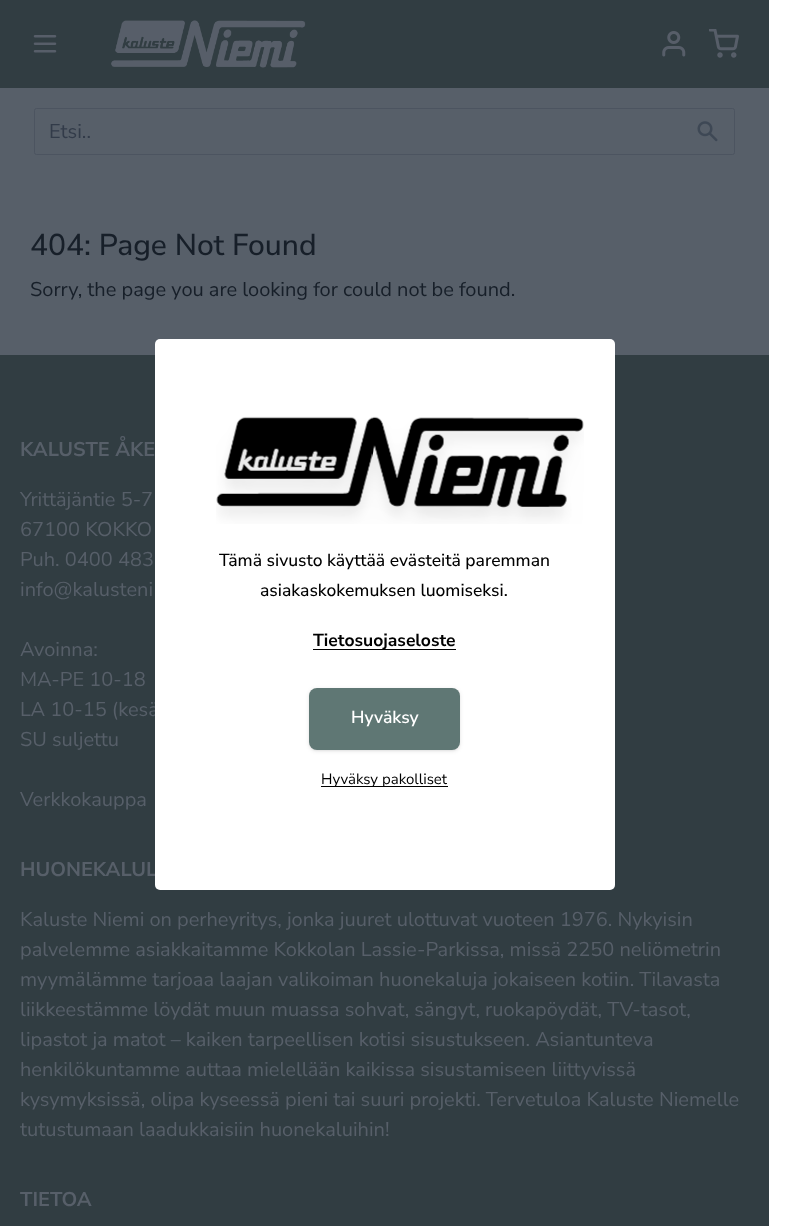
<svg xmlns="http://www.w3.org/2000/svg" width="787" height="1226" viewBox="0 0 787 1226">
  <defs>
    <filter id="blur1" x="-50%" y="-200%" width="200%" height="500%"><feGaussianBlur stdDeviation="1"/></filter>
    <filter id="blur2" x="-50%" y="-200%" width="200%" height="500%"><feGaussianBlur stdDeviation="2"/></filter>
  </defs>
  <rect width="100%" height="100%" fill="#ffffff"/>
  <rect x="0" y="88" width="769" height="267" fill="#575f69"/>
  <rect x="0" y="0" width="769" height="88" fill="#313d42"/>
  <image x="33" y="35" width="24" height="18" href="img1.png"/>
  <image x="111" y="20" width="195" height="48" href="img2.png"/>
  <image x="662" y="31" width="24" height="26" href="img3.png"/>
  <image x="709" y="29" width="30" height="29" href="img4.png"/>
  <rect x="34.5" y="108.5" width="700" height="46" rx="2" fill="none" stroke="#4c5460"/>
  <text x="49" y="138" font-family="Nunito Sans" font-size="20" fill="#323b49">Etsi..</text>
  <image x="697" y="121" width="21" height="21" href="img5.png"/>
  <text x="30" y="255" font-family="Nunito Sans" font-size="30" font-weight="500" fill="#171f29">404: Page Not Found</text>
  <text x="30" y="296" font-family="Nunito Sans" font-size="20" fill="#171f29">Sorry, the page you are looking for could not be found.</text>
  <rect x="0" y="355" width="769" height="871" fill="#313d42"/>
  <text x="20" y="456" font-family="Nunito Sans" font-size="20" font-weight="bold" fill="#575f69">KALUSTE ÅKE</text>
  <text x="20" y="506" font-family="Nunito Sans" font-size="20" fill="#575f69">Yrittäjäntie 5-7</text>
  <text x="20" y="536" font-family="Nunito Sans" font-size="20" fill="#575f69">67100 KOKKO</text>
  <text x="20" y="566" font-family="Nunito Sans" font-size="20" fill="#575f69">Puh. 0400 483</text>
  <text x="20" y="596" font-family="Nunito Sans" font-size="20" fill="#575f69">info@kalusteni</text>
  <text x="20" y="656" font-family="Nunito Sans" font-size="20" fill="#575f69">Avoinna:</text>
  <text x="20" y="686" font-family="Nunito Sans" font-size="20" fill="#575f69">MA-PE 10-18</text>
  <text x="20" y="716" font-family="Nunito Sans" font-size="20" fill="#575f69">LA 10-15 (kesä</text>
  <text x="20" y="746" font-family="Nunito Sans" font-size="20" fill="#575f69">SU suljettu</text>
  <text x="20" y="806" font-family="Nunito Sans" font-size="20" fill="#575f69">Verkkokauppa</text>
  <text x="20" y="876" font-family="Nunito Sans" font-size="20" font-weight="bold" fill="#575f69">HUONEKALUL</text>
  <text x="20" y="926" font-family="Nunito Sans" font-size="20" fill="#575f69">Kaluste Niemi on perheyritys, jonka juuret ulottuvat vuoteen 1976. Nykyisin</text>
  <text x="20" y="956" font-family="Nunito Sans" font-size="20" fill="#575f69">palvelemme asiakkaitamme Kokkolan Lassie-Parkissa, missä 2250 neliömetrin</text>
  <text x="20" y="986" font-family="Nunito Sans" font-size="20" fill="#575f69">myymälämme tarjoaa laajan valikoiman huonekaluja jokaiseen kotiin. Tilavasta</text>
  <text x="20" y="1016" font-family="Nunito Sans" font-size="20" fill="#575f69">liikkeestämme löydät muun muassa sohvat, sängyt, ruokapöydät, TV-tasot,</text>
  <text x="20" y="1046" font-family="Nunito Sans" font-size="20" fill="#575f69">lipastot ja matot – kaiken tarpeellisen kotisi sisustukseen. Asiantunteva</text>
  <text x="20" y="1076" font-family="Nunito Sans" font-size="20" fill="#575f69">henkilökuntamme auttaa mielellään kaikissa sisustamiseen liittyvissä</text>
  <text x="20" y="1106" font-family="Nunito Sans" font-size="20" fill="#575f69">kysymyksissä, olipa kyseessä pieni tai suuri projekti. Tervetuloa Kaluste Niemelle</text>
  <text x="20" y="1136" font-family="Nunito Sans" font-size="20" fill="#575f69">tutustumaan laadukkaisiin huonekaluihin!</text>
  <text x="20" y="1206" font-family="Nunito Sans" font-size="20" font-weight="bold" fill="#575f69">TIETOA</text>
  <rect x="155" y="339" width="460" height="551" rx="5" fill="#ffffff"/>
  <image x="216" y="416" width="368" height="108" href="img6.png"/>
  <text x="219" y="566" font-family="Nunito Sans" font-size="17.5" font-weight="500" fill="#000000">Tämä sivusto käyttää evästeitä paremman</text>
  <text x="260" y="596" font-family="Nunito Sans" font-size="17.5" font-weight="500" fill="#000000">asiakaskokemuksen luomiseksi.</text>
  <rect x="313" y="649" width="143" height="1" fill="#000000"/>
  <text x="313" y="646" font-family="Nunito Sans" font-size="17.5" font-weight="bold" fill="#000000">Tietosuojaseloste</text>
  <rect x="310" y="690" width="149" height="60" rx="6" fill="#000000" fill-opacity="0.1" filter="url(#blur1)"/>
  <rect x="309" y="689" width="151" height="62" rx="8" fill="#000000" fill-opacity="0.1" filter="url(#blur2)"/>
  <rect x="309" y="688" width="151" height="62" rx="8" fill="#5f7774"/>
  <text x="351" y="723" font-family="Nunito Sans" font-size="17.5" font-weight="600" fill="#ffffff">Hyväksy</text>
  <rect x="321" y="786" width="127" height="1" fill="#000000"/>
  <text x="321" y="784" font-family="Nunito Sans" font-size="15" fill="#000000">Hyväksy pakolliset</text>
</svg>
